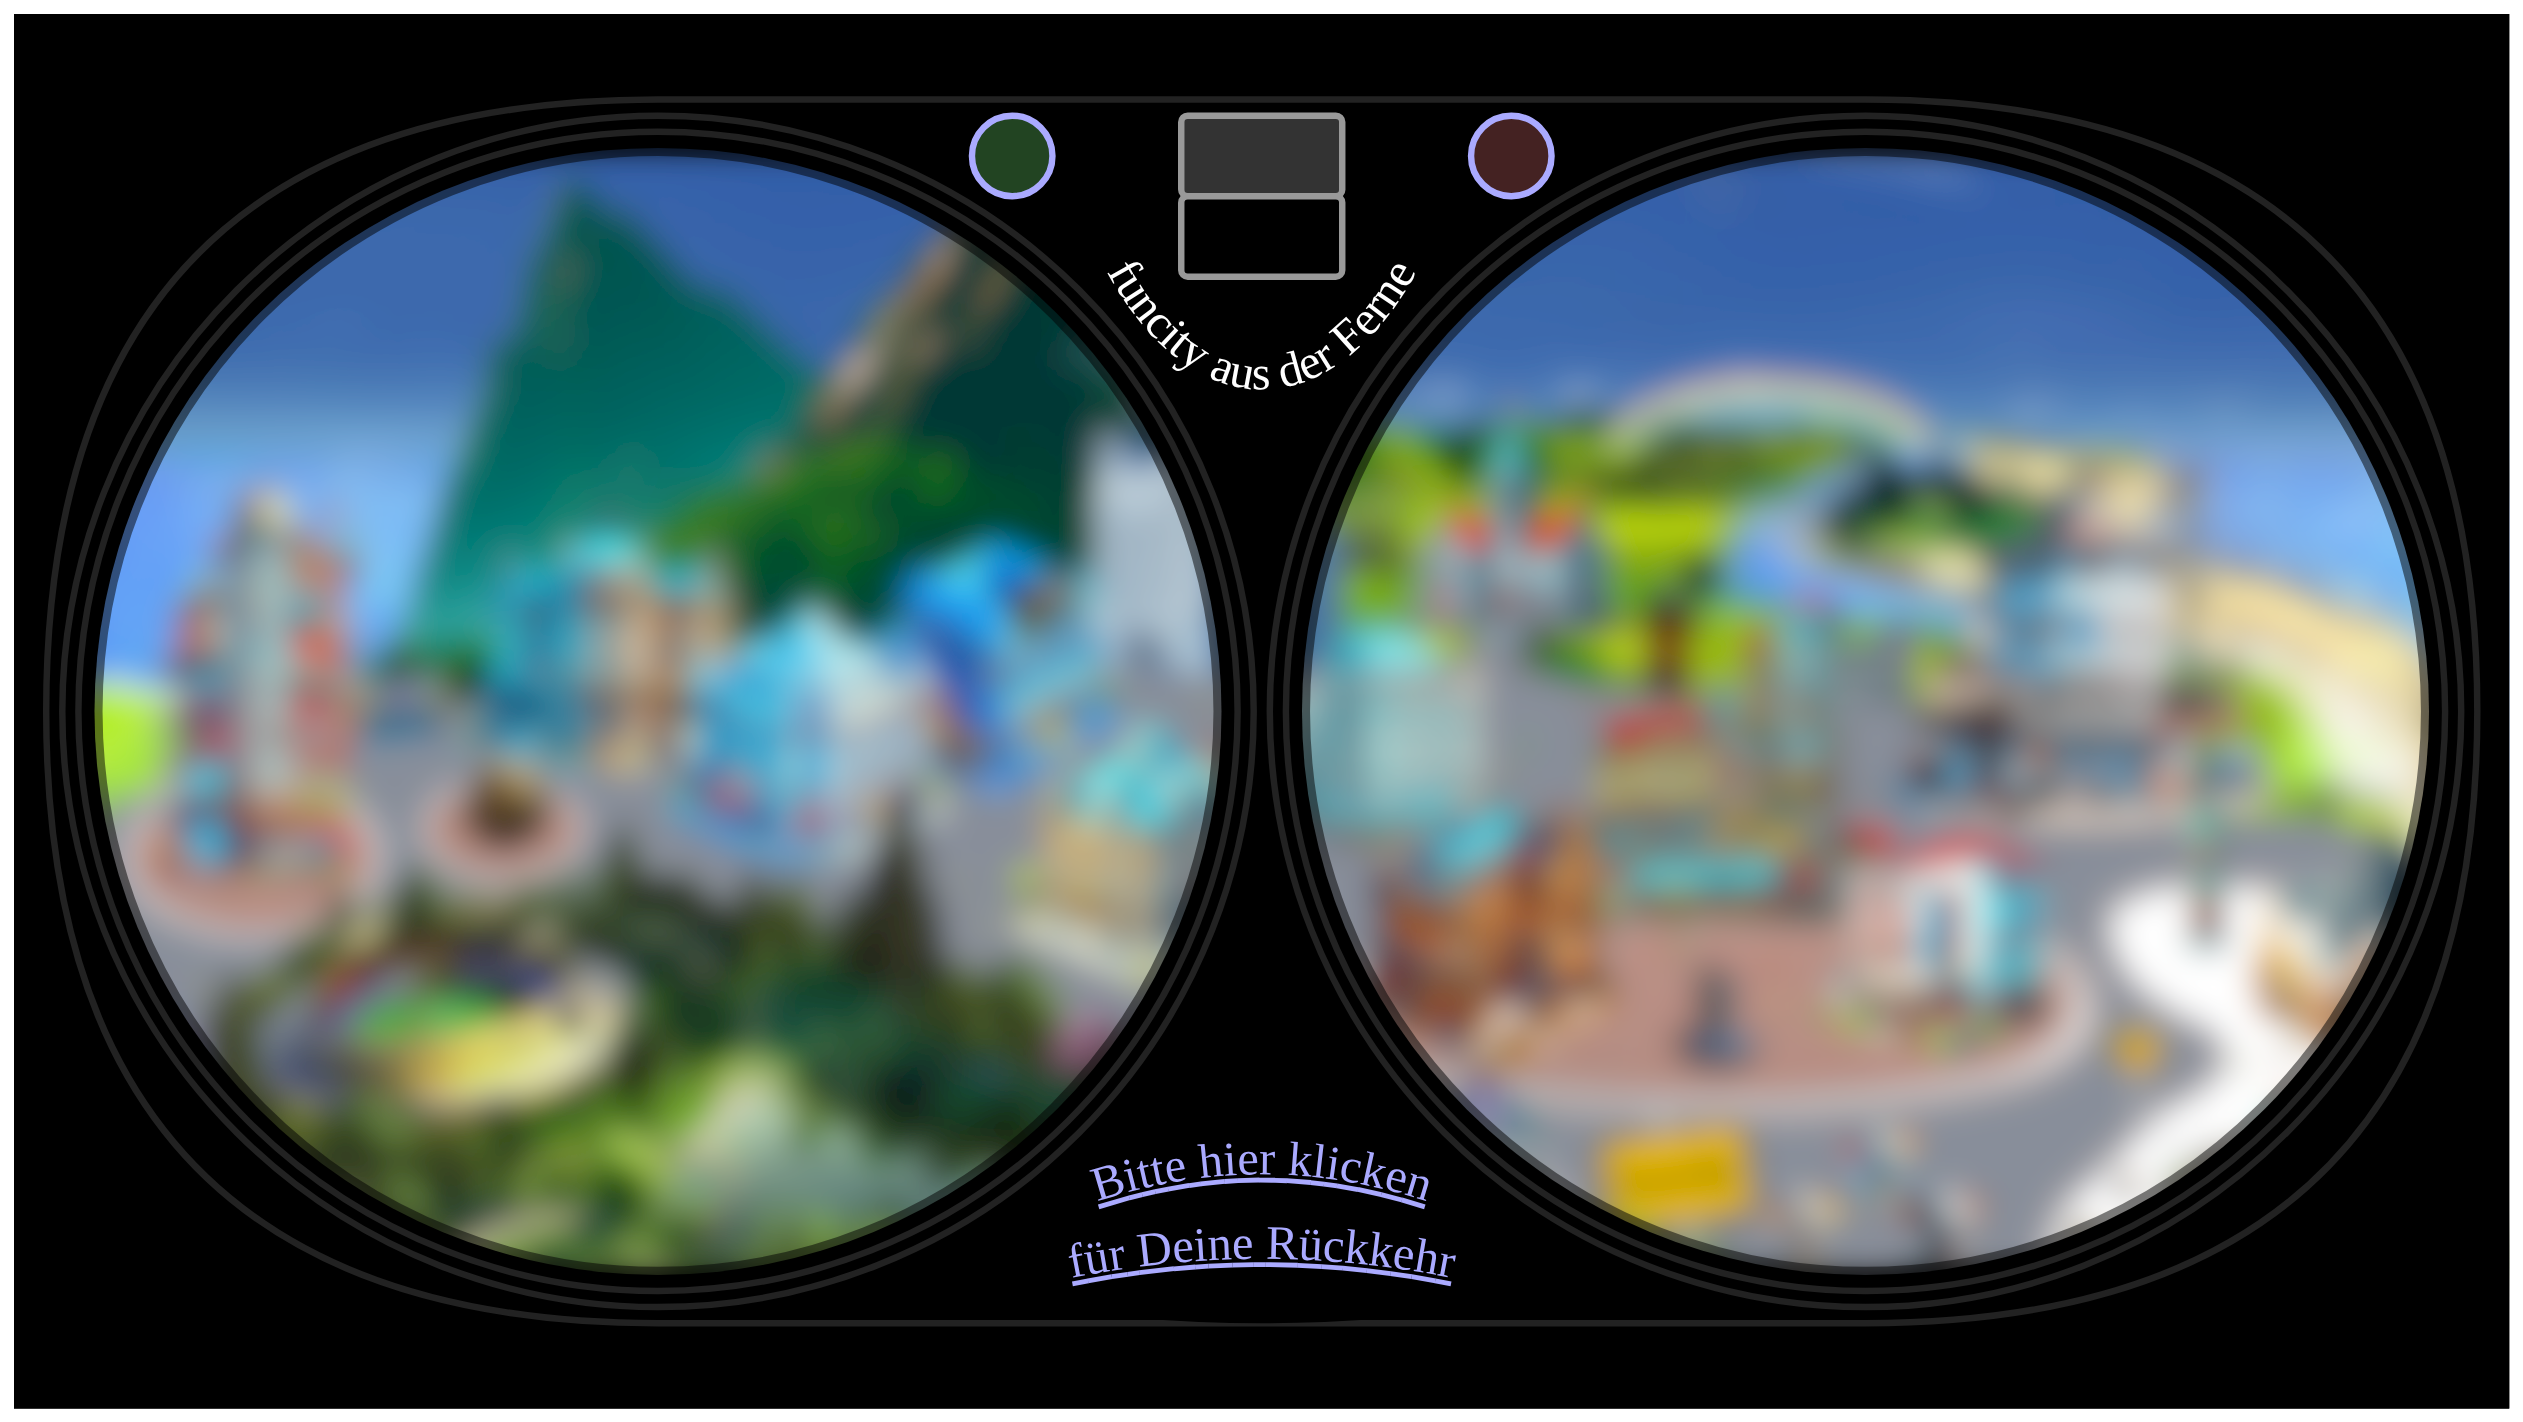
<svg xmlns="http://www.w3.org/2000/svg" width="2523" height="1422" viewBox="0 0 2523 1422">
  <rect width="100%" height="100%" fill="#ffffff"/>
  <image x="14" y="14" width="2496" height="1395" href="img1.png"/>
</svg>
